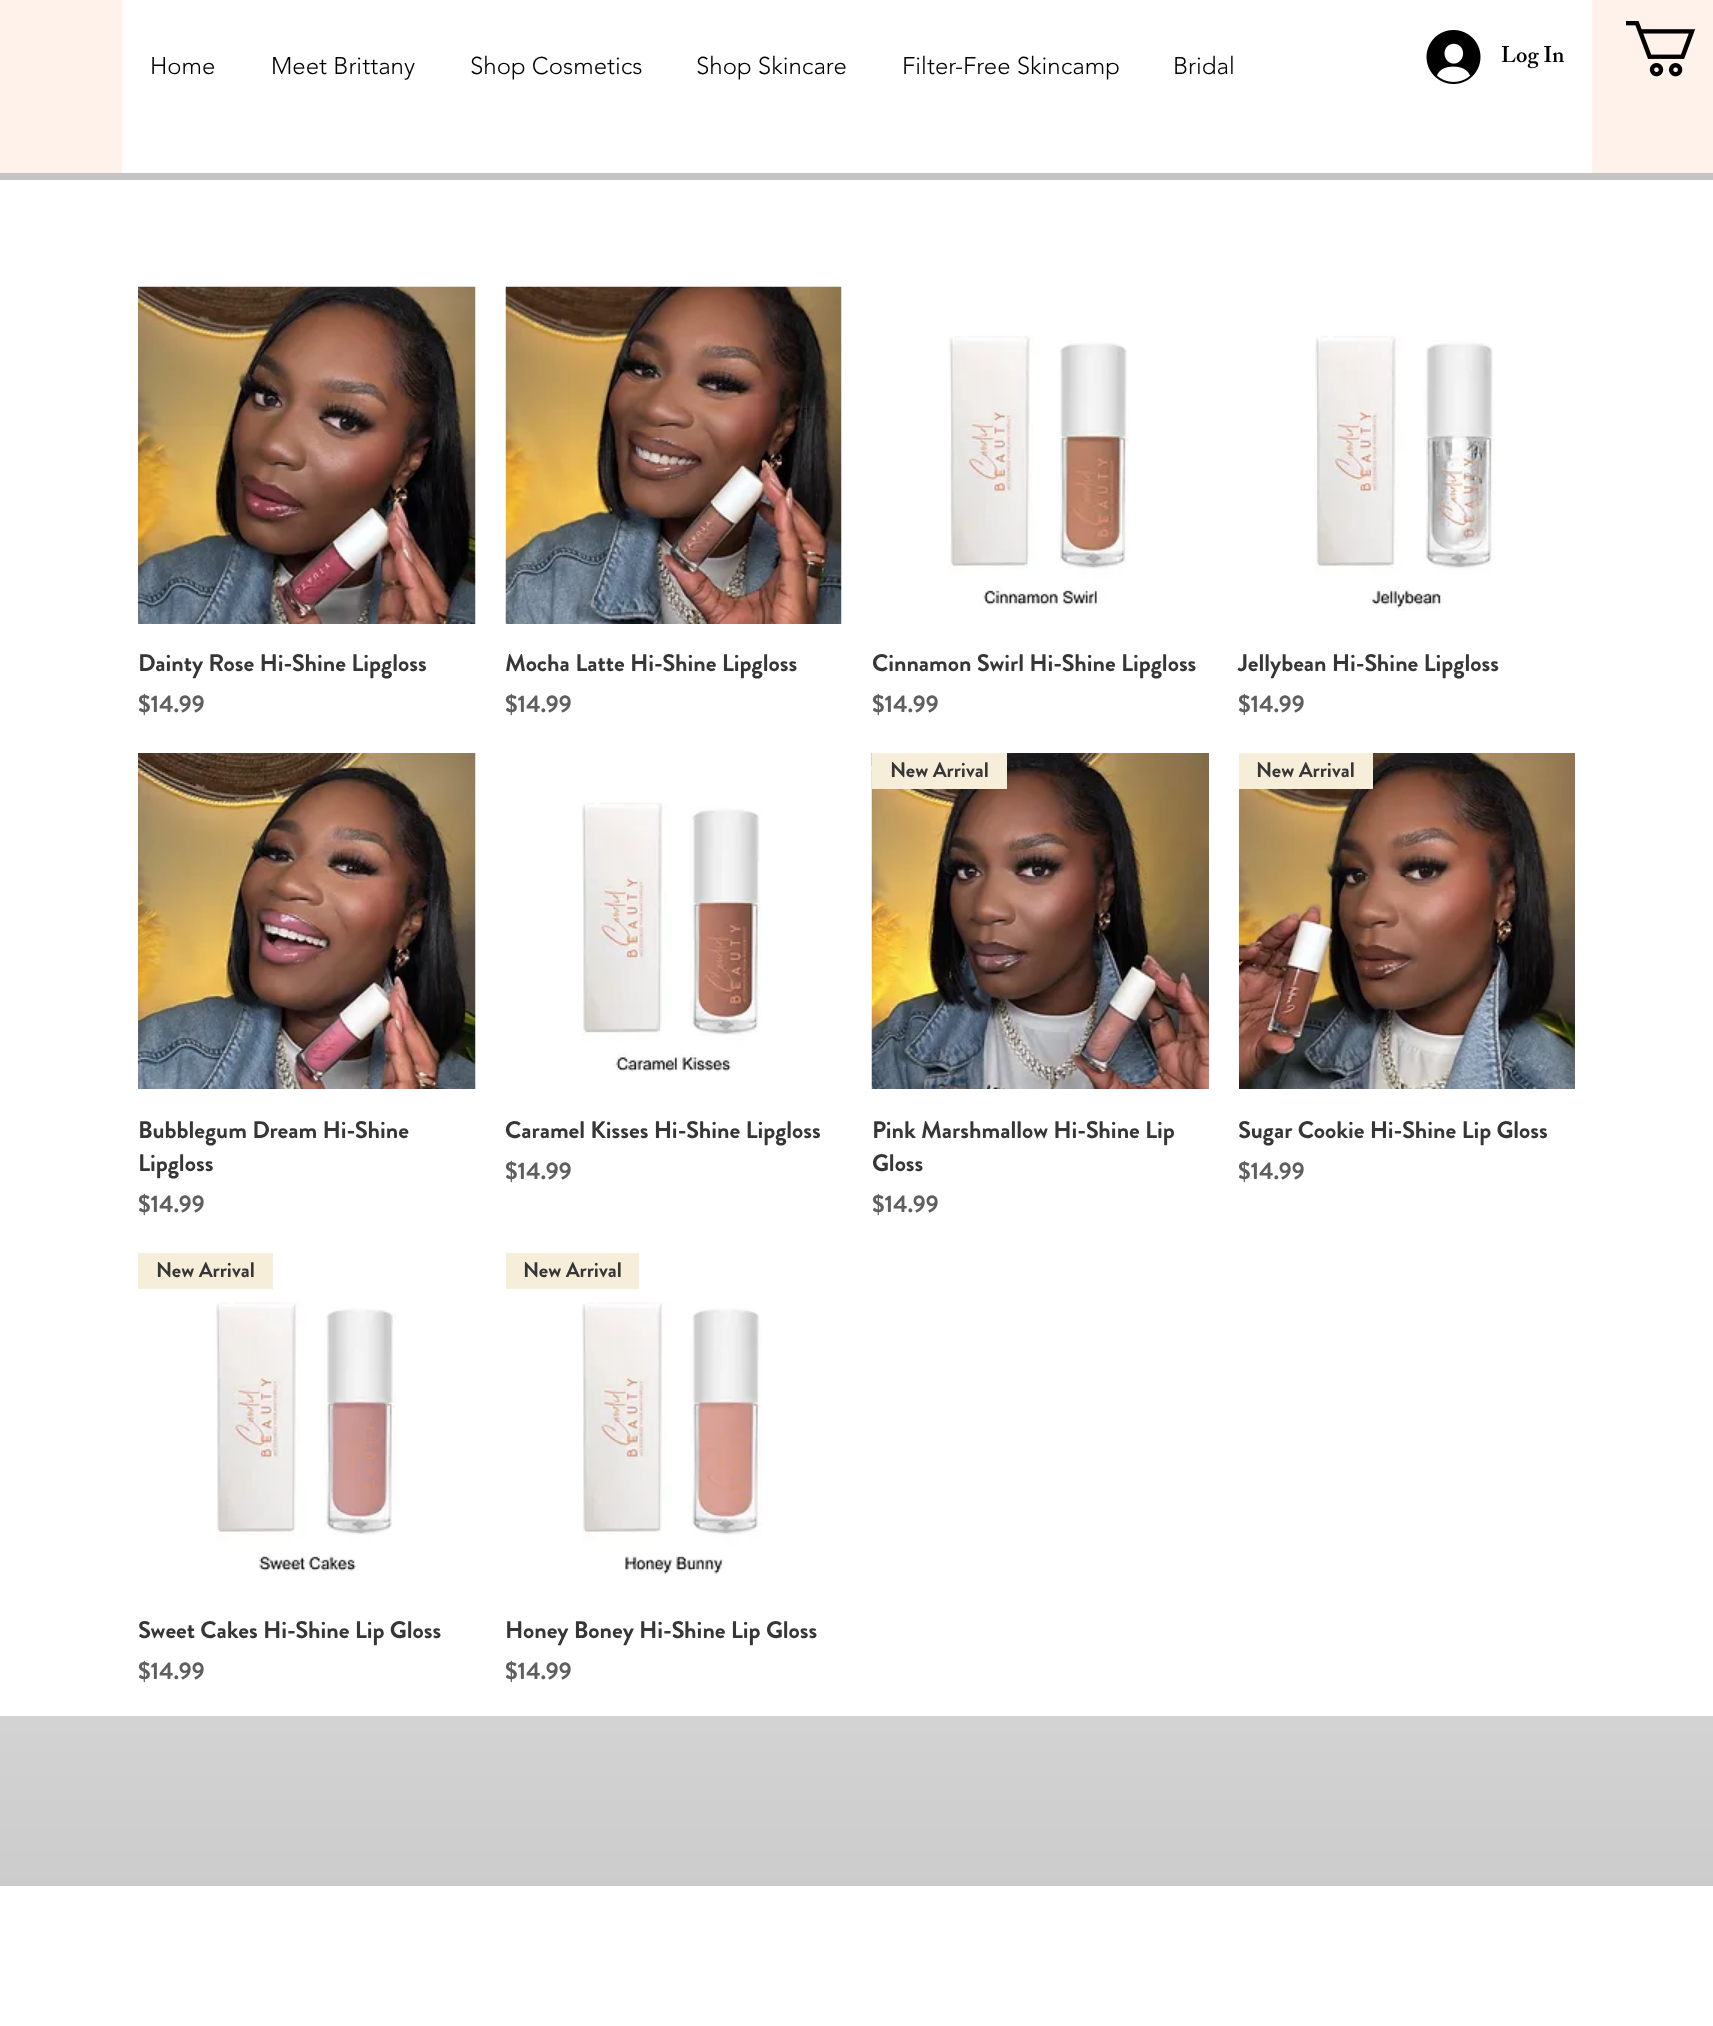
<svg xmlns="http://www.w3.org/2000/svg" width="1713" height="2026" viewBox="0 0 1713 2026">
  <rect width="100%" height="100%" fill="#ffffff"/>
  <rect x="0" y="0" width="1713" height="173" fill="#fef2ea"/>
  <rect x="0" y="173" width="1713" height="7" fill="#c4c4c4"/>
  <rect x="122" y="0" width="1470" height="173" fill="#ffffff"/>
  <text x="150" y="74" font-family="'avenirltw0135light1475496'" font-size="24" font-weight="300" fill="#000000">Home</text>
  <text x="271" y="74" font-family="'avenirltw0135light1475496'" font-size="24" font-weight="300" fill="#000000">Meet Brittany</text>
  <text x="470" y="74" font-family="'avenirltw0135light1475496'" font-size="24" font-weight="300" fill="#000000">Shop Cosmetics</text>
  <text x="696" y="74" font-family="'avenirltw0135light1475496'" font-size="24" font-weight="300" fill="#000000">Shop Skincare</text>
  <text x="902" y="74" font-family="'avenirltw0135light1475496'" font-size="24" font-weight="300" fill="#000000">Filter-Free Skincamp</text>
  <text x="1173" y="74" font-family="'avenirltw0135light1475496'" font-size="24" font-weight="300" fill="#000000">Bridal</text>
  <image x="1426" y="30" width="55" height="54" href="img1.png"/>
  <text x="1501" y="62" font-family="'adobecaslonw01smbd'" font-size="22.5" font-weight="600" fill="#000000">Log In</text>
  <image x="1626" y="21" width="70" height="56" href="img2.png"/>
  <image x="138" y="286" width="338" height="338" href="img3.png"/>
  <text x="138" y="671" font-family="Brandon Grotesque" font-size="24" font-weight="bold" fill="#363636">Dainty Rose Hi-Shine Lipgloss</text>
  <text x="138" y="712" font-family="Brandon Grotesque" font-size="24" font-weight="bold" fill="#605e5e">$14.99</text>
  <image x="505" y="286" width="337" height="338" href="img4.png"/>
  <text x="505" y="671" font-family="Brandon Grotesque" font-size="24" font-weight="bold" fill="#363636">Mocha Latte Hi-Shine Lipgloss</text>
  <text x="505" y="712" font-family="Brandon Grotesque" font-size="24" font-weight="bold" fill="#605e5e">$14.99</text>
  <image x="948" y="335" width="181" height="270" href="img5.png"/>
  <text x="872" y="671" font-family="Brandon Grotesque" font-size="24" font-weight="bold" fill="#363636">Cinnamon Swirl Hi-Shine Lipgloss</text>
  <text x="872" y="712" font-family="Brandon Grotesque" font-size="24" font-weight="bold" fill="#605e5e">$14.99</text>
  <image x="1315" y="335" width="180" height="276" href="img6.png"/>
  <text x="1238" y="671" font-family="Brandon Grotesque" font-size="24" font-weight="bold" fill="#363636">Jellybean Hi-Shine Lipgloss</text>
  <text x="1238" y="712" font-family="Brandon Grotesque" font-size="24" font-weight="bold" fill="#605e5e">$14.99</text>
  <image x="138" y="753" width="338" height="336" href="img7.png"/>
  <text x="138" y="1138" font-family="Brandon Grotesque" font-size="24" font-weight="bold" fill="#363636">Bubblegum Dream Hi-Shine</text>
  <text x="138" y="1171" font-family="Brandon Grotesque" font-size="24" font-weight="bold" fill="#363636">Lipgloss</text>
  <text x="138" y="1212" font-family="Brandon Grotesque" font-size="24" font-weight="bold" fill="#605e5e">$14.99</text>
  <image x="582" y="802" width="180" height="270" href="img8.png"/>
  <text x="505" y="1138" font-family="Brandon Grotesque" font-size="24" font-weight="bold" fill="#363636">Caramel Kisses Hi-Shine Lipgloss</text>
  <text x="505" y="1179" font-family="Brandon Grotesque" font-size="24" font-weight="bold" fill="#605e5e">$14.99</text>
  <image x="871" y="753" width="338" height="336" href="img9.png"/>
  <rect x="872" y="753" width="135" height="36" fill="#f7eeda"/>
  <text x="890" y="777" font-family="Brandon Grotesque" font-size="21" font-weight="bold" fill="#363636">New Arrival</text>
  <text x="872" y="1138" font-family="Brandon Grotesque" font-size="24" font-weight="bold" fill="#363636">Pink Marshmallow Hi-Shine Lip</text>
  <text x="872" y="1171" font-family="Brandon Grotesque" font-size="24" font-weight="bold" fill="#363636">Gloss</text>
  <text x="872" y="1212" font-family="Brandon Grotesque" font-size="24" font-weight="bold" fill="#605e5e">$14.99</text>
  <image x="1239" y="753" width="336" height="336" href="img10.png"/>
  <rect x="1239" y="753" width="134" height="36" fill="#f7eeda"/>
  <text x="1256" y="777" font-family="Brandon Grotesque" font-size="21" font-weight="bold" fill="#363636">New Arrival</text>
  <text x="1238" y="1138" font-family="Brandon Grotesque" font-size="24" font-weight="bold" fill="#363636">Sugar Cookie Hi-Shine Lip Gloss</text>
  <text x="1238" y="1179" font-family="Brandon Grotesque" font-size="24" font-weight="bold" fill="#605e5e">$14.99</text>
  <rect x="138" y="1253" width="135" height="36" fill="#f7eeda"/>
  <text x="156" y="1277" font-family="Brandon Grotesque" font-size="21" font-weight="bold" fill="#363636">New Arrival</text>
  <image x="216" y="1302" width="180" height="269" href="img11.png"/>
  <text x="138" y="1638" font-family="Brandon Grotesque" font-size="24" font-weight="bold" fill="#363636">Sweet Cakes Hi-Shine Lip Gloss</text>
  <text x="138" y="1679" font-family="Brandon Grotesque" font-size="24" font-weight="bold" fill="#605e5e">$14.99</text>
  <rect x="506" y="1253" width="133" height="36" fill="#f7eeda"/>
  <text x="523" y="1277" font-family="Brandon Grotesque" font-size="21" font-weight="bold" fill="#363636">New Arrival</text>
  <image x="582" y="1302" width="180" height="273" href="img12.png"/>
  <text x="505" y="1638" font-family="Brandon Grotesque" font-size="24" font-weight="bold" fill="#363636">Honey Boney Hi-Shine Lip Gloss</text>
  <text x="505" y="1679" font-family="Brandon Grotesque" font-size="24" font-weight="bold" fill="#605e5e">$14.99</text>
  <rect x="0" y="1716" width="1713" height="170" fill="#c4c4c4"/>
  <image x="0" y="1716" width="1713" height="170" href="img13.png"/>
</svg>
